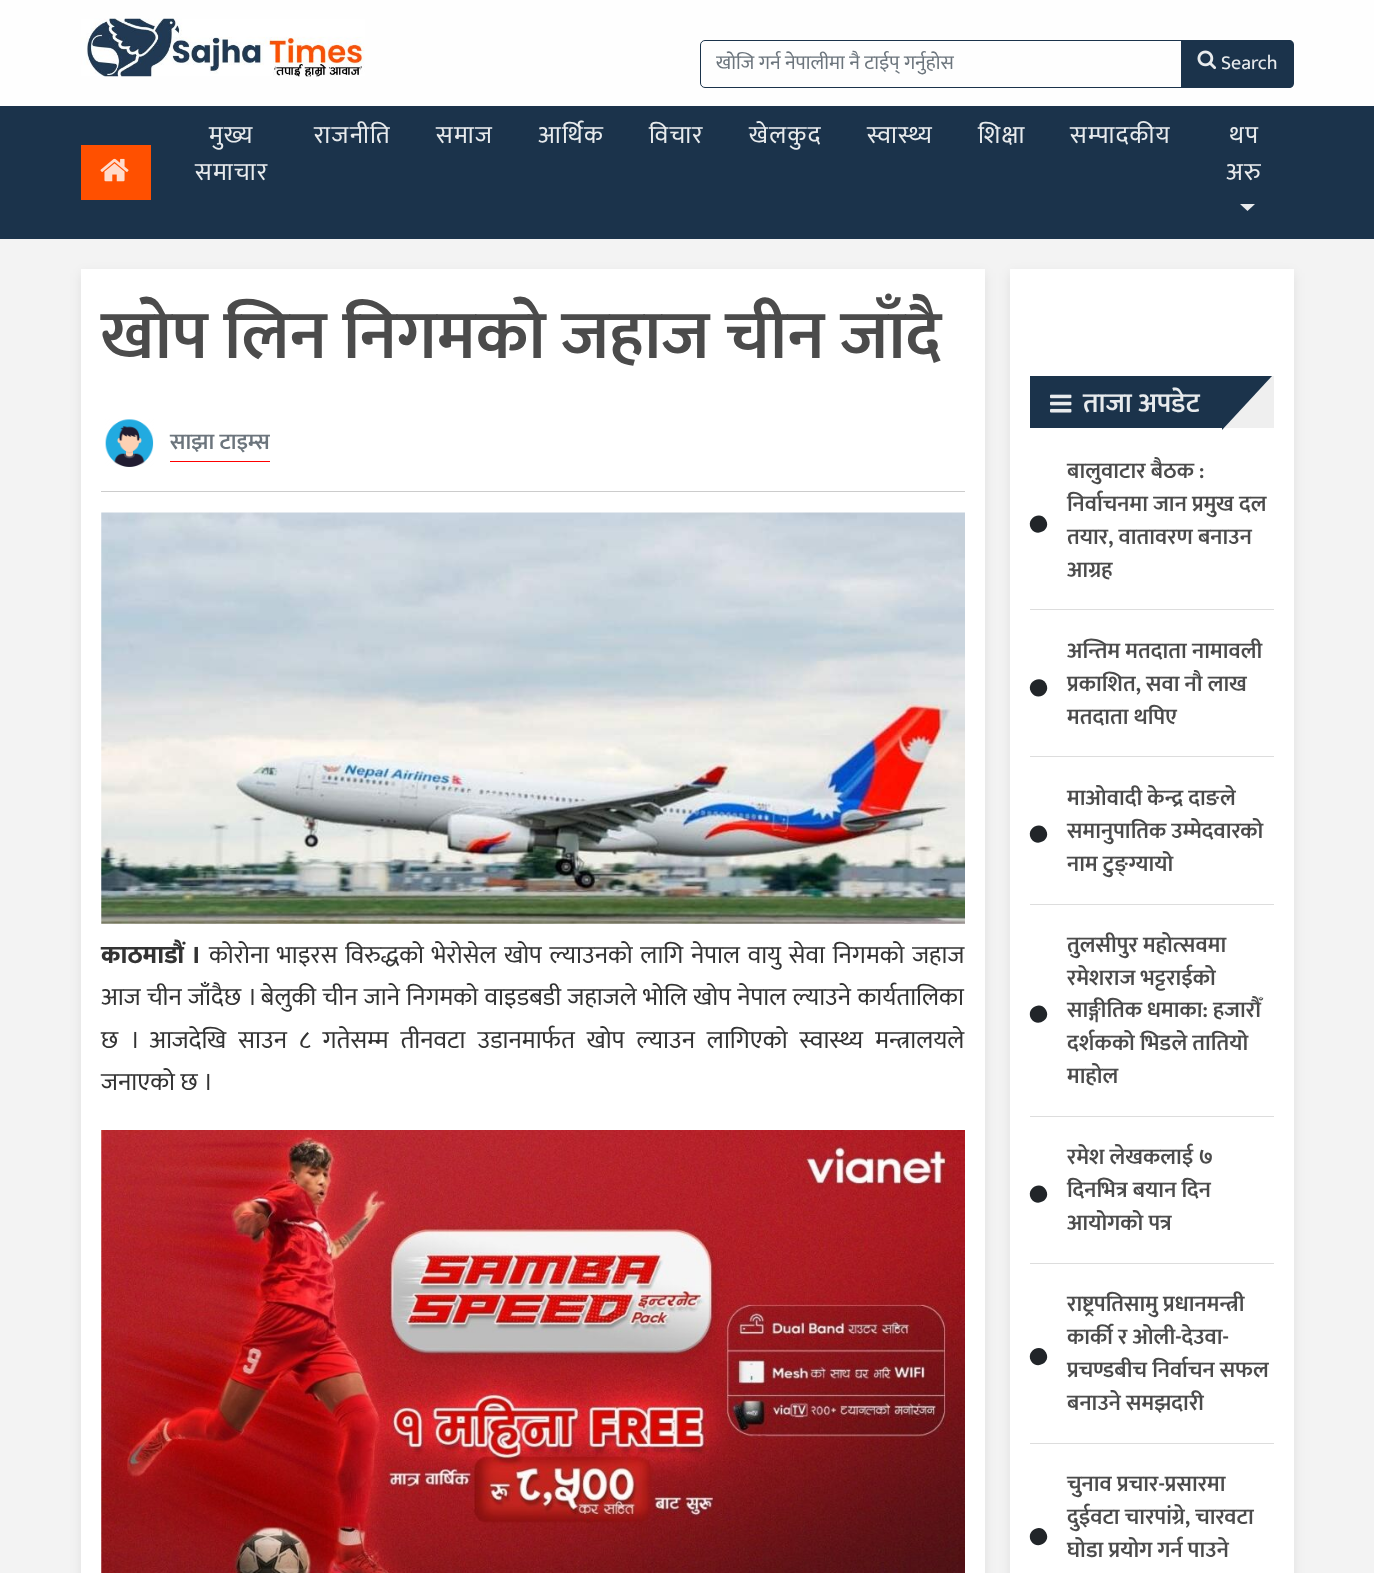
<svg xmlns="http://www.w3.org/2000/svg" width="1374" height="1573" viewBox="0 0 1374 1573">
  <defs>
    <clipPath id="clip1"><rect x="716" y="48" width="445" height="33"/></clipPath>
    <clipPath id="clip2"><rect x="739" y="106" width="92" height="58" rx="2.5"/></clipPath>
    <filter id="blur1" x="-50%" y="-200%" width="200%" height="500%"><feGaussianBlur stdDeviation="6"/></filter>
  </defs>
  <rect width="100%" height="100%" fill="#f3f3f3"/>
  <rect x="0" y="0" width="1374" height="106" fill="#fefefe"/>
  <image x="81" y="18" width="284" height="59" href="img1.png"/>
  <path d="M705 40.5H1182.5V87.5H705C702.5 87.5 700.5 85.5 700.5 83V45C700.5 42.5 702.5 40.5 705 40.5Z" fill="none" stroke="#1b334b"/>
  <g clip-path="url(#clip1)">
    <text x="716" y="69" font-family="Mukta" font-size="20" fill="#6c757d">खोजि गर्न नेपालीमा नै टाईप् गर्नुहोस</text>
  </g>
  <path d="M1181 40H1289C1292 40 1294 42 1294 45V83C1294 86 1292 88 1289 88H1181Z" fill="#1b334b"/>
  <image x="1197" y="50" width="20" height="20" href="img2.png"/>
  <text x="1221" y="69" font-family="Mukta" font-size="20" fill="#e8ebed">Search</text>
  <rect x="0" y="106" width="1374" height="133" fill="#1b334b"/>
  <rect x="81" y="145" width="70" height="55" fill="#ff5000"/>
  <image x="100" y="158" width="29" height="24" href="img3.png"/>
  <text x="209" y="143" font-family="Mukta" font-size="25" letter-spacing="1.25" fill="#e8ebed">मुख्य</text>
  <text x="195" y="180" font-family="Mukta" font-size="25" letter-spacing="1.25" fill="#e8ebed">समाचार</text>
  <text x="314" y="143" font-family="Mukta" font-size="25" letter-spacing="1.25" fill="#e8ebed">राजनीति</text>
  <text x="436" y="143" font-family="Mukta" font-size="25" letter-spacing="1.25" fill="#e8ebed">समाज</text>
  <text x="538" y="143" font-family="Mukta" font-size="25" letter-spacing="1.25" fill="#e8ebed">आर्थिक</text>
  <text x="649" y="143" font-family="Mukta" font-size="25" letter-spacing="1.25" fill="#e8ebed">विचार</text>
  <g clip-path="url(#clip2)">
    <text x="749" y="143" font-family="Mukta" font-size="25" letter-spacing="1.25" fill="#e8ebed">खेलकुद</text>
  </g>
  <text x="867" y="143" font-family="Mukta" font-size="25" letter-spacing="1.25" fill="#e8ebed">स्वास्थ्य</text>
  <text x="978" y="143" font-family="Mukta" font-size="25" letter-spacing="1.25" fill="#e8ebed">शिक्षा</text>
  <text x="1070" y="143" font-family="Mukta" font-size="25" letter-spacing="1.25" fill="#e8ebed">सम्पादकीय</text>
  <text x="1229" y="143" font-family="Mukta" font-size="25" letter-spacing="1.25" fill="#e8ebed">थप</text>
  <text x="1226" y="180" font-family="Mukta" font-size="25" letter-spacing="1.25" fill="#e8ebed">अरु</text>
  <path d="M1240 204H1255L1247.5 211Z" fill="#e8ebed"/>
  <rect x="81" y="273" width="904" height="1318" fill="#000000" fill-opacity="0.08" filter="url(#blur1)"/>
  <rect x="81" y="269" width="904" height="1304" fill="#ffffff"/>
  <text x="101" y="358" font-family="Mukta" font-size="68.75" font-weight="600" fill="#4b4b4b">खोप लिन निगमको जहाज चीन जाँदै</text>
  <rect x="101" y="491" width="864" height="1" fill="#cccccc"/>
  <image x="105" y="419" width="49" height="48" href="img4.png"/>
  <text x="170" y="449" font-family="Mukta" font-size="22.5" font-weight="600" fill="#6c757d">साझा टाइम्स</text>
  <rect x="170" y="461" width="100" height="1" fill="#ff0000"/>
  <image x="101" y="512" width="864" height="412" href="img5.png"/>
  <text x="101" y="963" word-spacing="2.1" font-family="Mukta" font-size="25" font-weight="800" fill="#333333">काठमाडौं ।</text>
  <text x="209" y="963" word-spacing="2.1" font-family="Mukta" font-size="25" fill="#333333">कोरोना भाइरस विरुद्धको भेरोसेल खोप ल्याउनको लागि नेपाल वायु सेवा निगमको जहाज</text>
  <text x="101" y="1005" word-spacing="0.75" font-family="Mukta" font-size="25" fill="#333333">आज चीन जाँदैछ । बेलुकी चीन जाने निगमको वाइडबडी जहाजले भोलि खोप नेपाल ल्याउने कार्यतालिका</text>
  <text x="101" y="1048" word-spacing="6.4" font-family="Mukta" font-size="25" fill="#333333">छ । आजदेखि साउन ८ गतेसम्म तीनवटा उडानमार्फत खोप ल्याउन लागिएको स्वास्थ्य मन्त्रालयले</text>
  <text x="101" y="1090" font-family="Mukta" font-size="25" fill="#333333">जनाएको छ ।</text>
  <image x="101" y="1130" width="864" height="443" href="img6.png"/>
  <rect x="1010" y="273" width="284" height="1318" fill="#000000" fill-opacity="0.08" filter="url(#blur1)"/>
  <rect x="1010" y="269" width="284" height="1304" fill="#ffffff"/>
  <rect x="1223" y="376" width="51" height="52" fill="#efefef"/>
  <rect x="1030" y="376" width="192" height="52" fill="#1b334b"/>
  <image x="1050" y="394" width="22" height="19" href="img7.png"/>
  <text x="1083" y="412" font-family="Mukta" font-size="27.5" font-weight="600" fill="#e8ebed">ताजा अपडेट</text>
  <path d="M1222 376H1272L1222 430Z" fill="#1b334b"/>
  <rect x="1030" y="609" width="244" height="1" fill="#dddddd"/>
  <path d="M1046 520C1051.5 529.5 1037 538 1031 528.5C1025.5 518.5 1040.5 510 1046 520Z" fill="#212529"/>
  <text x="1067" y="478" font-family="Mukta" font-size="22.5" font-weight="600" fill="#4b4b4b">बालुवाटार बैठक :</text>
  <text x="1067" y="511" font-family="Mukta" font-size="22.5" font-weight="600" fill="#4b4b4b">निर्वाचनमा जान प्रमुख दल</text>
  <text x="1067" y="544" font-family="Mukta" font-size="22.5" font-weight="600" fill="#4b4b4b">तयार, वातावरण बनाउन</text>
  <text x="1067" y="577" font-family="Mukta" font-size="22.5" font-weight="600" fill="#4b4b4b">आग्रह</text>
  <rect x="1030" y="756" width="244" height="1" fill="#dddddd"/>
  <path d="M1046 683.5C1051.5 693.5 1037 702 1031 692C1025.5 682.5 1040.5 674 1046 683.5Z" fill="#212529"/>
  <text x="1067" y="658" font-family="Mukta" font-size="22.5" font-weight="600" fill="#4b4b4b">अन्तिम मतदाता नामावली</text>
  <text x="1067" y="691" font-family="Mukta" font-size="22.5" font-weight="600" fill="#4b4b4b">प्रकाशित, सवा नौ लाख</text>
  <text x="1067" y="724" font-family="Mukta" font-size="22.5" font-weight="600" fill="#4b4b4b">मतदाता थपिए</text>
  <rect x="1030" y="904" width="244" height="1" fill="#dddddd"/>
  <path d="M1046 830C1051.5 839.5 1037 848 1031 838.5C1025.5 828.5 1040.5 820 1046 830Z" fill="#212529"/>
  <text x="1067" y="805" font-family="Mukta" font-size="22.5" font-weight="600" fill="#4b4b4b">माओवादी केन्द्र दाङले</text>
  <text x="1067" y="838" font-family="Mukta" font-size="22.5" font-weight="600" fill="#4b4b4b">समानुपातिक उम्मेदवारको</text>
  <text x="1067" y="871" font-family="Mukta" font-size="22.5" font-weight="600" fill="#4b4b4b">नाम टुङ्ग्यायो</text>
  <rect x="1030" y="1116" width="244" height="1" fill="#dddddd"/>
  <path d="M1046 1010C1051.5 1019.5 1037 1028 1031 1018.5C1025.5 1008.5 1040.5 1000 1046 1010Z" fill="#212529"/>
  <text x="1067" y="952" font-family="Mukta" font-size="22.5" font-weight="600" fill="#4b4b4b">तुलसीपुर महोत्सवमा</text>
  <text x="1067" y="985" font-family="Mukta" font-size="22.5" font-weight="600" fill="#4b4b4b">रमेशराज भट्टराईको</text>
  <text x="1067" y="1017" font-family="Mukta" font-size="22.5" font-weight="600" fill="#4b4b4b">साङ्गीतिक धमाका: हजारौँ</text>
  <text x="1067" y="1050" font-family="Mukta" font-size="22.5" font-weight="600" fill="#4b4b4b">दर्शकको भिडले तातियो</text>
  <text x="1067" y="1083" font-family="Mukta" font-size="22.5" font-weight="600" fill="#4b4b4b">माहोल</text>
  <rect x="1030" y="1263" width="244" height="1" fill="#dddddd"/>
  <path d="M1046 1190C1051.5 1199.5 1037 1208 1031 1198.5C1025.5 1188.5 1040.5 1180 1046 1190Z" fill="#212529"/>
  <text x="1067" y="1164" font-family="Mukta" font-size="22.5" font-weight="600" fill="#4b4b4b">रमेश लेखकलाई ७</text>
  <text x="1067" y="1197" font-family="Mukta" font-size="22.5" font-weight="600" fill="#4b4b4b">दिनभित्र बयान दिन</text>
  <text x="1067" y="1230" font-family="Mukta" font-size="22.5" font-weight="600" fill="#4b4b4b">आयोगको पत्र</text>
  <rect x="1030" y="1443" width="244" height="1" fill="#dddddd"/>
  <path d="M1046 1352.5C1051.5 1362 1037 1370.5 1031 1361C1025.5 1351 1040.5 1342.5 1046 1352.5Z" fill="#212529"/>
  <text x="1067" y="1311" font-family="Mukta" font-size="22.5" font-weight="600" fill="#4b4b4b">राष्ट्रपतिसामु प्रधानमन्त्री</text>
  <text x="1067" y="1344" font-family="Mukta" font-size="22.5" font-weight="600" fill="#4b4b4b">कार्की र ओली-देउवा-</text>
  <text x="1067" y="1377" font-family="Mukta" font-size="22.5" font-weight="600" fill="#4b4b4b">प्रचण्डबीच निर्वाचन सफल</text>
  <text x="1067" y="1410" font-family="Mukta" font-size="22.5" font-weight="600" fill="#4b4b4b">बनाउने समझदारी</text>
  <path d="M1046 1532.5C1051.5 1542 1037 1550.5 1031 1541C1025.5 1531 1040.5 1522.5 1046 1532.5Z" fill="#212529"/>
  <text x="1067" y="1491" font-family="Mukta" font-size="22.5" font-weight="600" fill="#4b4b4b">चुनाव प्रचार-प्रसारमा</text>
  <text x="1067" y="1524" font-family="Mukta" font-size="22.5" font-weight="600" fill="#4b4b4b">दुईवटा चारपांग्रे, चारवटा</text>
  <text x="1067" y="1557" font-family="Mukta" font-size="22.5" font-weight="600" fill="#4b4b4b">घोडा प्रयोग गर्न पाउने</text>
</svg>
